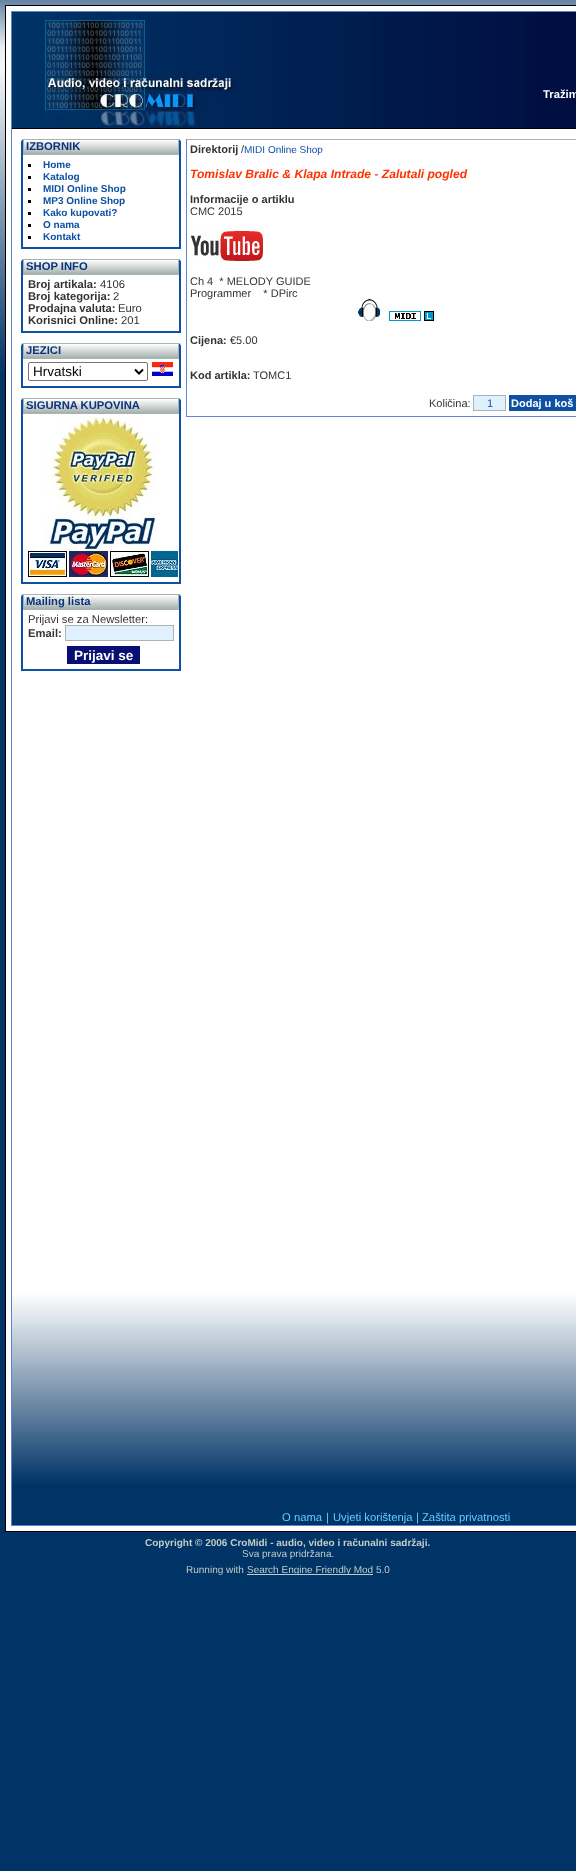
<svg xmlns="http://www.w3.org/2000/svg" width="576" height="1871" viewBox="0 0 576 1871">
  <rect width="100%" height="100%" fill="#003366"/>
  <image x="0" y="0" width="576" height="373" href="img1.png"/>
  <rect x="5.5" y="5.5" width="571" height="1526" fill="#ffffff" stroke="#000000"/>
  <image x="12" y="1295" width="564" height="230" href="img2.png"/>
  <rect x="11.5" y="11.5" width="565" height="1514" fill="none" stroke="#5c84ce"/>
  <image x="12" y="12" width="564" height="116" href="img3.png"/>
  <rect x="12" y="128" width="564" height="1" fill="#000000"/>
  <text x="543" y="98" font-family="Liberation Sans" font-size="11.25" font-weight="bold" fill="#ffffff">Tražim</text>
  <image x="21" y="139" width="160" height="16" href="img4.png"/>
  <text x="26" y="150" font-family="Liberation Sans" font-size="11.25" font-weight="bold" fill="#09347c">IZBORNIK</text>
  <rect x="179" y="155" width="2" height="94" fill="#0e51a3"/>
  <rect x="21" y="247" width="160" height="2" fill="#0e51a3"/>
  <rect x="21" y="155" width="2" height="94" fill="#0e51a3"/>
  <rect x="28" y="164" width="3" height="3" fill="#000000"/>
  <text x="43" y="168" font-family="Liberation Sans" font-size="10" font-weight="bold" fill="#0e51a3">Home</text>
  <rect x="28" y="176" width="3" height="3" fill="#000000"/>
  <text x="43" y="180" font-family="Liberation Sans" font-size="10" font-weight="bold" fill="#0e51a3">Katalog</text>
  <rect x="28" y="188" width="3" height="3" fill="#000000"/>
  <text x="43" y="192" font-family="Liberation Sans" font-size="10" font-weight="bold" fill="#0e51a3">MIDI Online Shop</text>
  <rect x="28" y="200" width="3" height="3" fill="#000000"/>
  <text x="43" y="204" font-family="Liberation Sans" font-size="10" font-weight="bold" fill="#0e51a3">MP3 Online Shop</text>
  <rect x="28" y="212" width="3" height="3" fill="#000000"/>
  <text x="43" y="216" font-family="Liberation Sans" font-size="10" font-weight="bold" fill="#0e51a3">Kako kupovati?</text>
  <rect x="28" y="224" width="3" height="3" fill="#000000"/>
  <text x="43" y="228" font-family="Liberation Sans" font-size="10" font-weight="bold" fill="#0e51a3">O nama</text>
  <rect x="28" y="236" width="3" height="3" fill="#000000"/>
  <text x="43" y="240" font-family="Liberation Sans" font-size="10" font-weight="bold" fill="#0e51a3">Kontakt</text>
  <image x="21" y="259" width="160" height="16" href="img4.png"/>
  <text x="26" y="270" font-family="Liberation Sans" font-size="11.25" font-weight="bold" fill="#09347c">SHOP INFO</text>
  <rect x="179" y="275" width="2" height="58" fill="#0e51a3"/>
  <rect x="21" y="331" width="160" height="2" fill="#0e51a3"/>
  <rect x="21" y="275" width="2" height="58" fill="#0e51a3"/>
  <text x="28" y="288" font-family="Liberation Sans" font-size="11.25" font-weight="bold" fill="#333333">Broj artikala:</text>
  <text x="100" y="288" font-family="Liberation Sans" font-size="11.25" fill="#333333">4106</text>
  <text x="28" y="300" font-family="Liberation Sans" font-size="11.25" font-weight="bold" fill="#333333">Broj kategorija:</text>
  <text x="113" y="300" font-family="Liberation Sans" font-size="11.25" fill="#333333">2</text>
  <text x="28" y="312" font-family="Liberation Sans" font-size="11.25" font-weight="bold" fill="#333333">Prodajna valuta:</text>
  <text x="118" y="312" font-family="Liberation Sans" font-size="11.25" fill="#333333">Euro</text>
  <text x="28" y="324" font-family="Liberation Sans" font-size="11.25" font-weight="bold" fill="#333333">Korisnici Online:</text>
  <text x="121" y="324" font-family="Liberation Sans" font-size="11.25" fill="#333333">201</text>
  <image x="21" y="343" width="160" height="16" href="img4.png"/>
  <text x="26" y="354" font-family="Liberation Sans" font-size="11.25" font-weight="bold" fill="#09347c">JEZICI</text>
  <rect x="179" y="359" width="2" height="29" fill="#0e51a3"/>
  <rect x="21" y="386" width="160" height="2" fill="#0e51a3"/>
  <rect x="21" y="359" width="2" height="29" fill="#0e51a3"/>
  <rect x="28.5" y="362.5" width="119" height="18" rx="1.5" fill="none" stroke="#767676"/>
  <path d="M135 369.5L139 373.5L143 369.5" fill="none" stroke="#000000" stroke-width="2"/>
  <text x="33" y="376" font-family="Liberation Sans" font-size="13.5" fill="#000000">Hrvatski</text>
  <image x="152" y="362" width="21" height="14" href="img5.png"/>
  <image x="21" y="398" width="160" height="16" href="img4.png"/>
  <text x="26" y="409" font-family="Liberation Sans" font-size="11.25" font-weight="bold" fill="#09347c">SIGURNA KUPOVINA</text>
  <rect x="179" y="414" width="2" height="170" fill="#0e51a3"/>
  <rect x="21" y="582" width="160" height="2" fill="#0e51a3"/>
  <rect x="21" y="414" width="2" height="170" fill="#0e51a3"/>
  <image x="28" y="417" width="150" height="160" href="img6.png"/>
  <image x="21" y="594" width="160" height="16" href="img4.png"/>
  <text x="26" y="605" font-family="Liberation Sans" font-size="11.25" font-weight="bold" fill="#09347c">Mailing lista</text>
  <rect x="179" y="610" width="2" height="61" fill="#0e51a3"/>
  <rect x="21" y="669" width="160" height="2" fill="#0e51a3"/>
  <rect x="21" y="610" width="2" height="61" fill="#0e51a3"/>
  <text x="28" y="623" font-family="Liberation Sans" font-size="11.25" fill="#333333">Prijavi se za Newsletter:</text>
  <text x="28" y="637" font-family="Liberation Sans" font-size="11.25" font-weight="bold" fill="#333333">Email:</text>
  <rect x="65.5" y="625.5" width="108" height="15" fill="#e0f0ff" stroke="#a8b4b0"/>
  <rect x="67" y="646" width="73" height="18" fill="#070f72"/>
  <text x="74" y="660" font-family="Liberation Sans" font-size="13.5" font-weight="bold" fill="#ffffff">Prijavi se</text>
  <rect x="186" y="139" width="390" height="1" fill="#a8b4b0"/>
  <rect x="186" y="416" width="390" height="1" fill="#5e85cf"/>
  <rect x="186" y="139" width="1" height="278" fill="#5e85cf"/>
  <text x="190" y="153" font-family="Liberation Sans" font-size="11" font-weight="bold" fill="#333333">Direktorij</text>
  <text x="241" y="153" font-family="Liberation Sans" font-size="11" fill="#333333">/</text>
  <text x="244" y="153" font-family="Liberation Sans" font-size="10" fill="#0e51a3">MIDI Online Shop</text>
  <text x="190" y="178" font-family="Liberation Sans" font-size="12.1" font-weight="bold" font-style="italic" fill="#ff3300">Tomislav Bralic &amp; Klapa Intrade - Zalutali pogled</text>
  <text x="190" y="203" font-family="Liberation Sans" font-size="11" font-weight="bold" fill="#333333">Informacije o artiklu</text>
  <text x="190" y="215" font-family="Liberation Sans" font-size="11" fill="#333333">CMC 2015</text>
  <image x="191" y="228" width="73" height="36" href="img7.png"/>
  <text x="190" y="285" font-family="Liberation Sans" font-size="11" fill="#333333" xml:space="preserve">Ch 4  * MELODY GUIDE</text>
  <text x="190" y="297" font-family="Liberation Sans" font-size="11" fill="#333333" xml:space="preserve">Programmer    * DPirc</text>
  <image x="358" y="299" width="22" height="22" href="img8.png"/>
  <image x="389" y="311" width="45" height="10" href="img9.png"/>
  <text x="190" y="344" font-family="Liberation Sans" font-size="11" font-weight="bold" fill="#333333">Cijena:</text>
  <text x="230" y="344" font-family="Liberation Sans" font-size="11" fill="#333333">€5.00</text>
  <text x="190" y="379" font-family="Liberation Sans" font-size="11" font-weight="bold" fill="#333333">Kod artikla:</text>
  <text x="253" y="379" font-family="Liberation Sans" font-size="11" fill="#333333">TOMC1</text>
  <text x="429" y="407" font-family="Liberation Sans" font-size="11" fill="#333333">Količina:</text>
  <rect x="473.5" y="395.5" width="32" height="15" fill="#e0f0ff" stroke="#a8b4b0"/>
  <text x="487" y="407" font-family="Liberation Sans" font-size="11" fill="#0e51a3">1</text>
  <rect x="509" y="395" width="67" height="16" fill="#0e51a3"/>
  <text x="511" y="407" font-family="Liberation Sans" font-size="11" font-weight="bold" fill="#ffffff">Dodaj u koš</text>
  <text x="282" y="1521" font-family="Liberation Sans" font-size="11.25" fill="#66ccff">O nama</text>
  <text x="326" y="1521" font-family="Liberation Sans" font-size="11.25" fill="#66ccff">|</text>
  <text x="333" y="1521" font-family="Liberation Sans" font-size="11.25" fill="#66ccff">Uvjeti korištenja</text>
  <text x="416" y="1521" font-family="Liberation Sans" font-size="11.25" fill="#66ccff">|</text>
  <text x="422" y="1521" font-family="Liberation Sans" font-size="11.25" fill="#66ccff">Zaštita privatnosti</text>
  <text x="145" y="1546" font-family="Liberation Sans" font-size="10" font-weight="bold" fill="#bfccc7">Copyright © 2006 CroMidi - audio, video i računalni sadržaji.</text>
  <text x="242" y="1557" font-family="Liberation Sans" font-size="10" fill="#bfccc7">Sva prava pridržana.</text>
  <text x="186" y="1573" font-family="Liberation Sans" font-size="10" fill="#bfccc7">Running with</text>
  <rect x="247" y="1574" width="126" height="1" fill="#bfccc7"/>
  <text x="247" y="1573" font-family="Liberation Sans" font-size="10" fill="#bfccc7">Search Engine Friendly Mod 5.0</text>
</svg>
